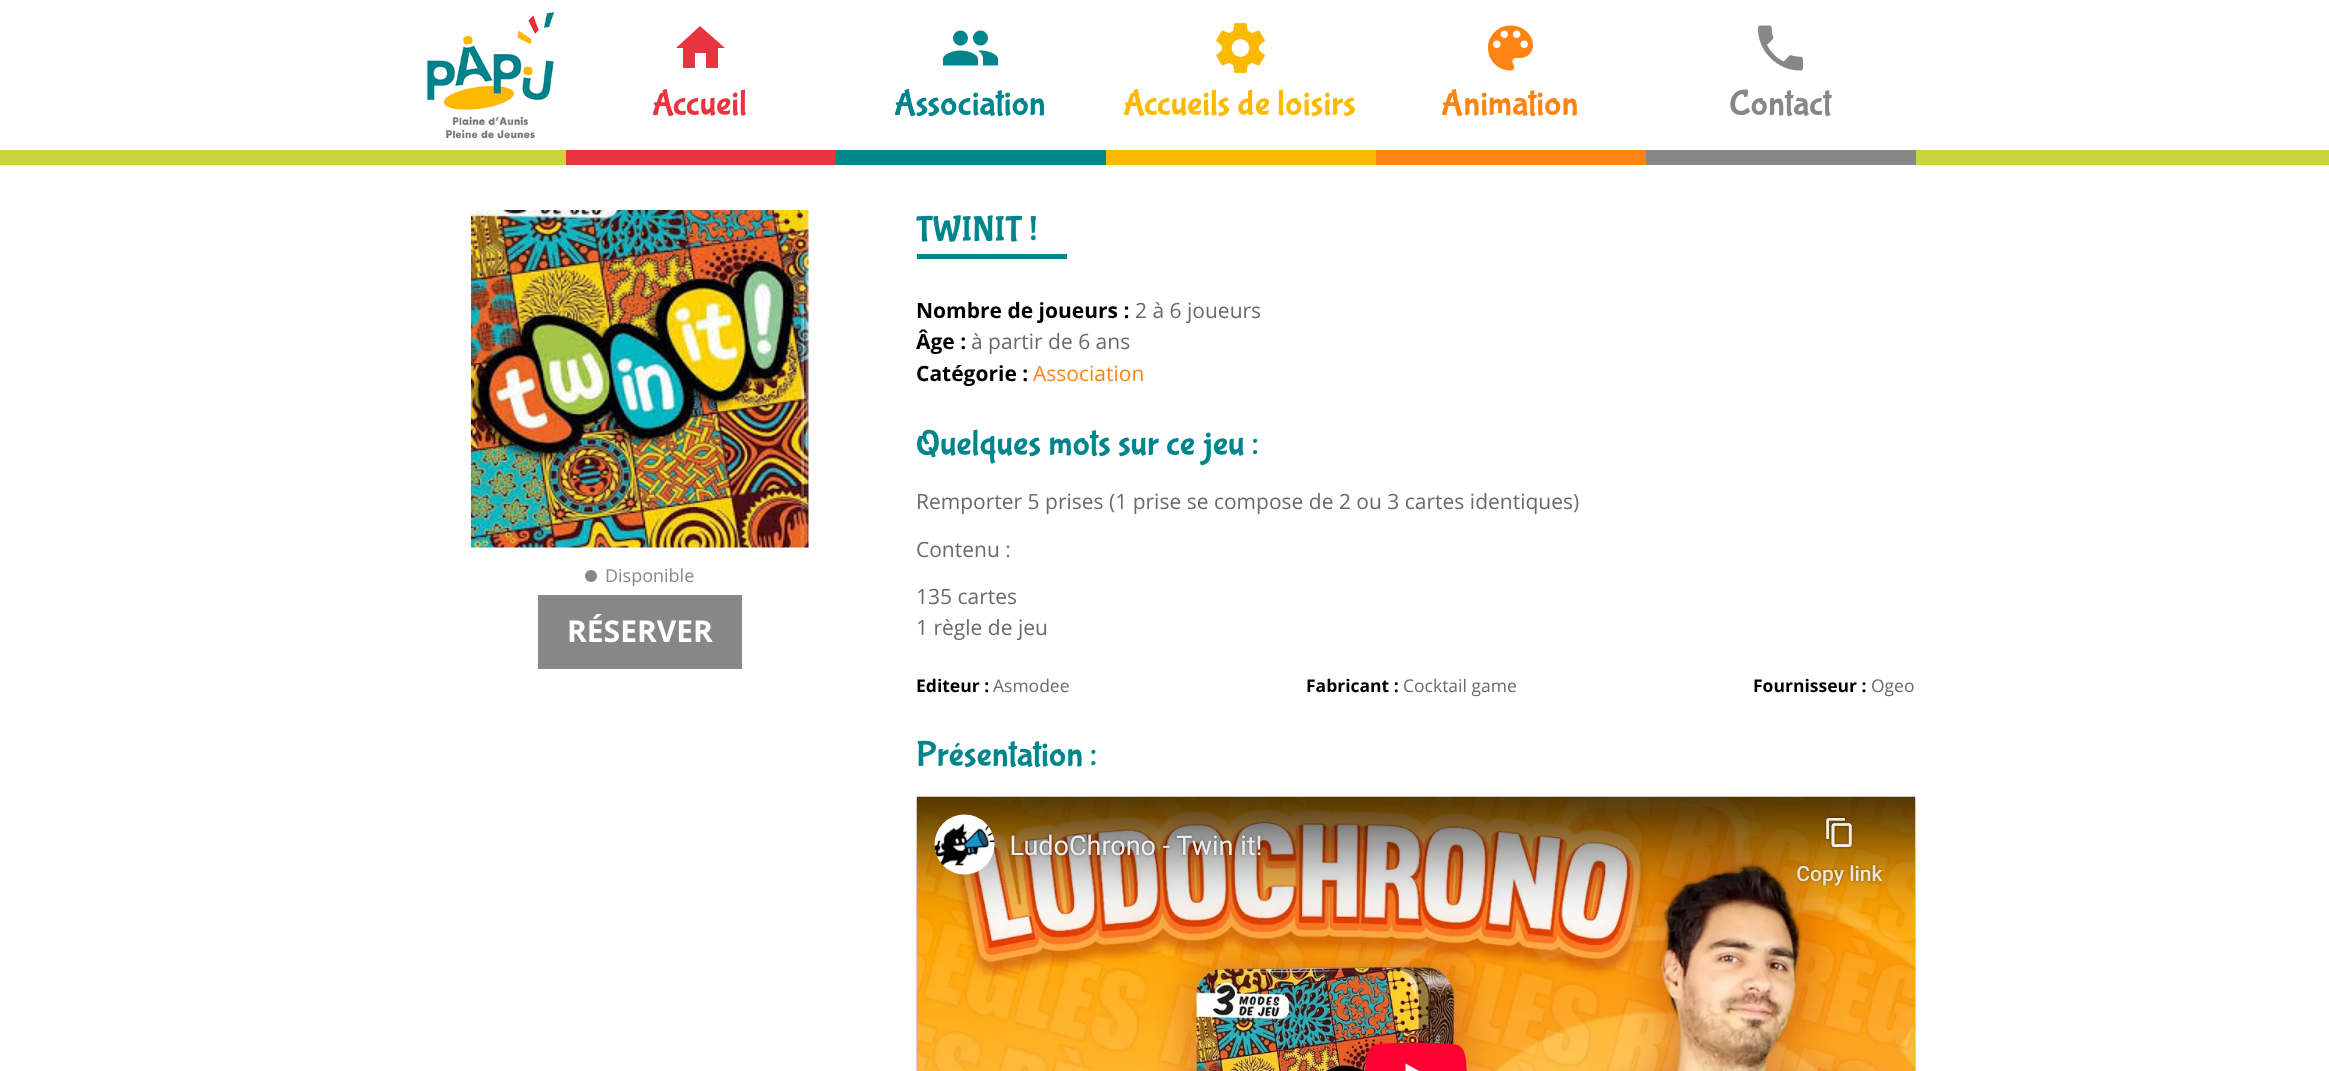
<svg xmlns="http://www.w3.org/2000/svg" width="2329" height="1071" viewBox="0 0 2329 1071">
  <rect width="100%" height="100%" fill="#ffffff"/>
  <rect x="0" y="150" width="2329" height="15" fill="#cad440"/>
  <image x="426" y="12" width="129" height="127" href="img1.png"/>
  <path d="M695 68H683V48H676L700 26L725 48H718V68H706V53H695Z" fill="#e7343f"/>
  <text x="652" y="114" font-family="Bubblegum Sans" font-size="36" fill="#e7343f">Accueil</text>
  <rect x="566" y="150" width="270" height="15" fill="#e7343f"/>
  <image x="942" y="30" width="57" height="36" href="img2.png"/>
  <text x="894" y="114" font-family="Bubblegum Sans" font-size="36" fill="#00858c">Association</text>
  <rect x="836" y="150" width="270" height="15" fill="#00858c"/>
  <image x="1216" y="23" width="49" height="50" href="img3.png"/>
  <text x="1123" y="114" font-family="Bubblegum Sans" font-size="36" fill="#fbba00">Accueils de loisirs</text>
  <rect x="1106" y="150" width="270" height="15" fill="#fbba00"/>
  <image x="1488" y="25" width="45" height="46" href="img4.png"/>
  <text x="1441" y="114" font-family="Bubblegum Sans" font-size="36" fill="#fe8514">Animation</text>
  <rect x="1376" y="150" width="270" height="15" fill="#fe8514"/>
  <image x="1758" y="25" width="45" height="46" href="img5.png"/>
  <text x="1729" y="114" font-family="Bubblegum Sans" font-size="36" fill="#878787">Contact</text>
  <rect x="1646" y="150" width="270" height="15" fill="#878787"/>
  <image x="471" y="210" width="338" height="338" href="img6.png"/>
  <circle cx="591" cy="576" r="6" fill="#878787"/>
  <text x="605" y="582" font-family="Open Sans" font-size="18" fill="#878787">Disponible</text>
  <rect x="538" y="595" width="204" height="74" fill="#878787"/>
  <text x="567" y="642" font-family="Open Sans" font-size="30" font-weight="bold" fill="#ffffff">RÉSERVER</text>
  <text x="916" y="240" font-family="Bubblegum Sans" font-size="36" fill="#00858c">TWINIT !</text>
  <rect x="917" y="254" width="150" height="5" fill="#00858c"/>
  <text x="916" y="318" font-family="Open Sans" font-size="21" font-weight="bold" fill="#000000">Nombre de joueurs :</text>
  <text x="1135" y="318" font-family="Open Sans" font-size="21" fill="#6a6a6a">2 à 6 joueurs</text>
  <text x="916" y="349" font-family="Open Sans" font-size="21" font-weight="bold" fill="#000000">Âge :</text>
  <text x="971" y="349" font-family="Open Sans" font-size="21" fill="#6a6a6a">à partir de 6 ans</text>
  <text x="916" y="381" font-family="Open Sans" font-size="21" font-weight="bold" fill="#000000">Catégorie :</text>
  <text x="1033" y="381" font-family="Open Sans" font-size="21" fill="#fe8514">Association</text>
  <text x="916" y="454" font-family="Bubblegum Sans" font-size="36" fill="#00858c">Quelques mots sur ce jeu :</text>
  <text x="916" y="509" font-family="Open Sans" font-size="21" fill="#6a6a6a">Remporter 5 prises (1 prise se compose de 2 ou 3 cartes identiques)</text>
  <text x="916" y="557" font-family="Open Sans" font-size="21" fill="#6a6a6a">Contenu :</text>
  <text x="916" y="604" font-family="Open Sans" font-size="21" fill="#6a6a6a">135 cartes</text>
  <text x="916" y="635" font-family="Open Sans" font-size="21" fill="#6a6a6a">1 règle de jeu</text>
  <text x="916" y="692" font-family="Open Sans" font-size="17.5" font-weight="bold" fill="#000000">Editeur :</text>
  <text x="993" y="692" font-family="Open Sans" font-size="17.5" fill="#6a6a6a">Asmodee</text>
  <text x="1306" y="692" font-family="Open Sans" font-size="17.5" font-weight="bold" fill="#000000">Fabricant :</text>
  <text x="1403" y="692" font-family="Open Sans" font-size="17.5" fill="#6a6a6a">Cocktail game</text>
  <text x="1753" y="692" font-family="Open Sans" font-size="17.5" font-weight="bold" fill="#000000">Fournisseur :</text>
  <text x="1871" y="692" font-family="Open Sans" font-size="17.5" fill="#6a6a6a">Ogeo</text>
  <text x="916" y="765" font-family="Bubblegum Sans" font-size="36" fill="#00858c">Présentation :</text>
  <image x="916" y="796" width="1000" height="275" href="img7.png"/>
</svg>
